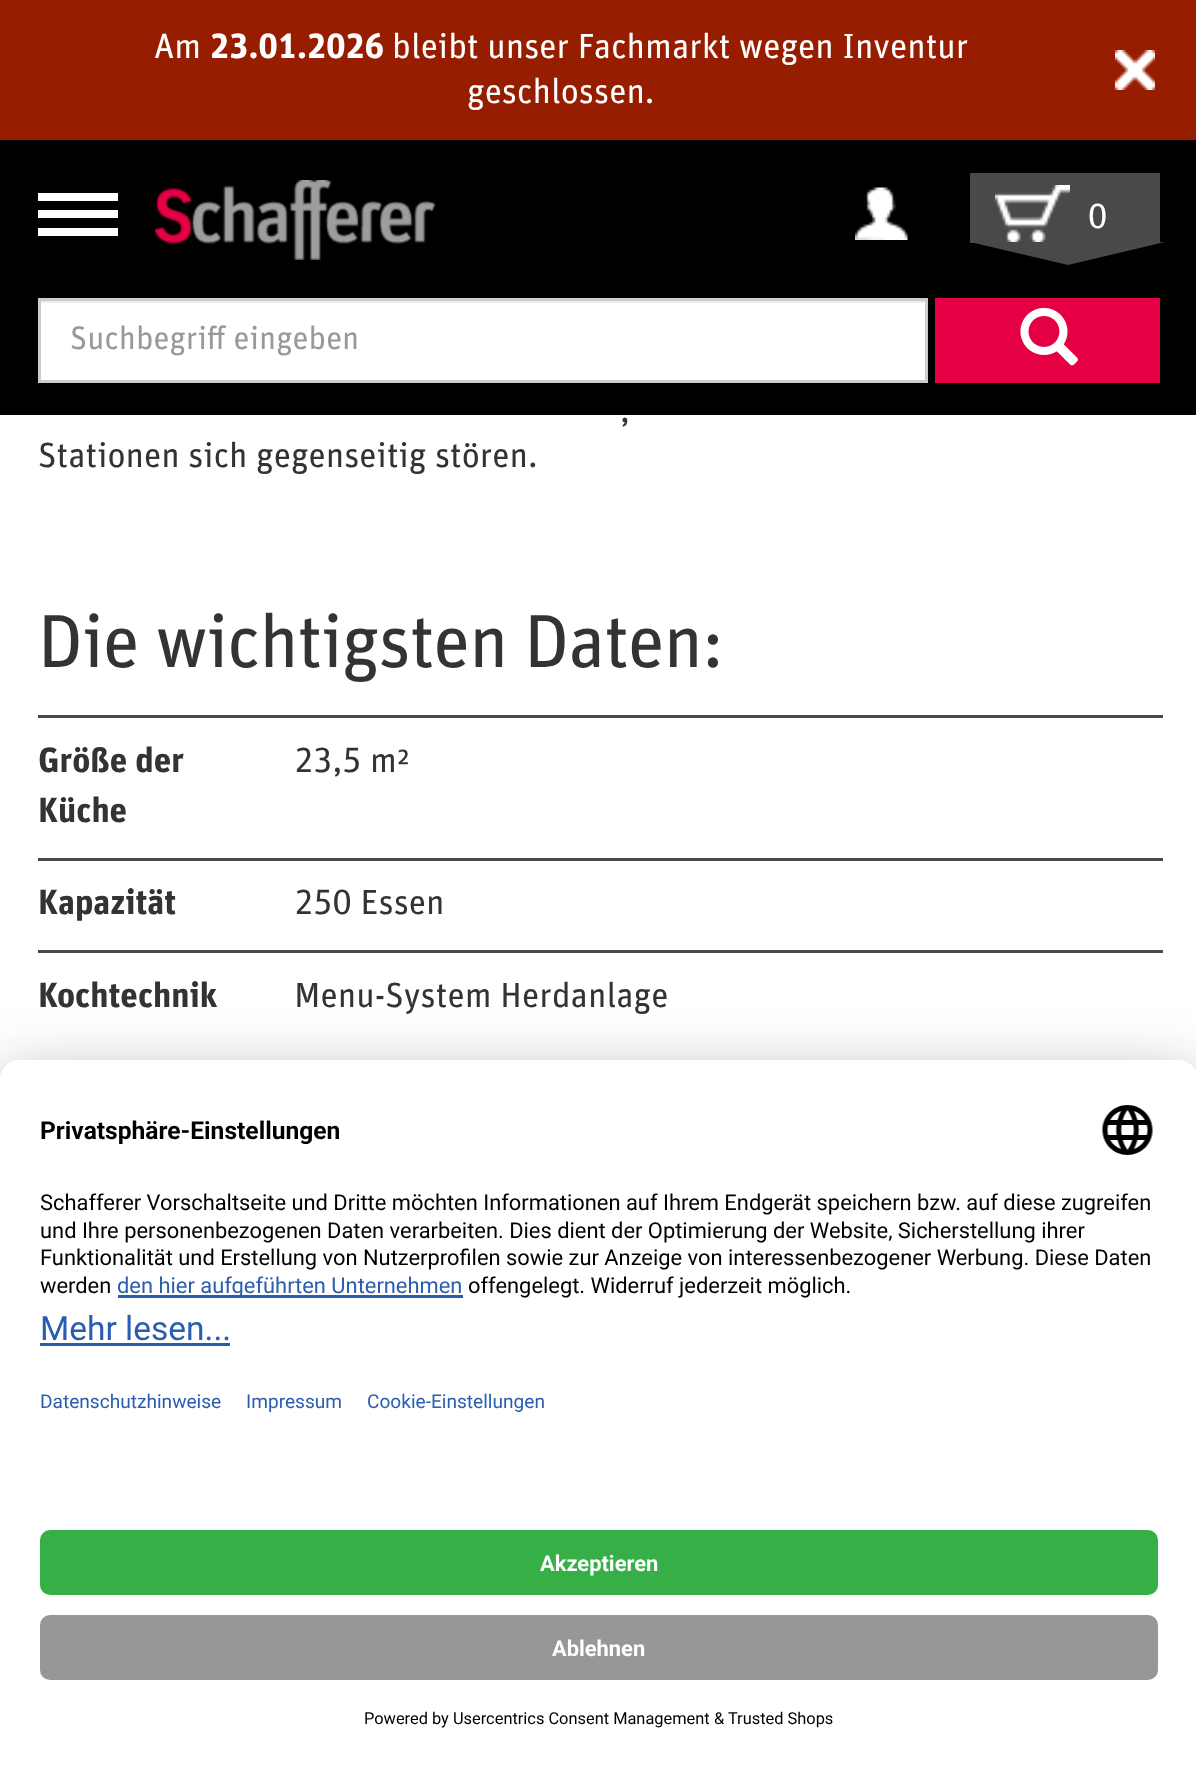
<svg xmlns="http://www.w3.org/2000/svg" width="1196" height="1768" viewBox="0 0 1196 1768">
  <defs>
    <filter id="blur1" x="-50%" y="-200%" width="200%" height="500%"><feGaussianBlur stdDeviation="35"/></filter>
    <filter id="blur2" x="-50%" y="-200%" width="200%" height="500%"><feGaussianBlur stdDeviation="32.5"/></filter>
  </defs>
  <rect width="100%" height="100%" fill="#ffffff"/>
  <rect x="0" y="0" width="1196" height="140" fill="#971d00"/>
  <text x="154" y="58" font-family="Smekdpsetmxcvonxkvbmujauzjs" font-size="35" fill="#ffffff">Am</text>
  <text x="210" y="58" font-family="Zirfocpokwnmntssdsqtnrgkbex" font-size="35" font-weight="bold" fill="#ffffff">23.01.2026</text>
  <text x="392" y="58" font-family="Smekdpsetmxcvonxkvbmujauzjs" font-size="35" fill="#ffffff">bleibt unser Fachmarkt wegen Inventur</text>
  <text x="467" y="103" font-family="Smekdpsetmxcvonxkvbmujauzjs" font-size="35" fill="#ffffff">geschlossen.</text>
  <image x="1115" y="50" width="40" height="40" href="img1.png"/>
  <rect x="0" y="140" width="1196" height="275" fill="#000000"/>
  <rect x="38" y="193" width="80" height="8" fill="#ffffff"/>
  <rect x="38" y="210" width="80" height="8" fill="#ffffff"/>
  <rect x="38" y="228" width="80" height="8" fill="#ffffff"/>
  <image x="155" y="180" width="280" height="80" href="img2.png"/>
  <image x="855" y="187" width="53" height="53" href="img3.png"/>
  <rect x="970" y="173" width="190" height="70" fill="#494948"/>
  <image x="995" y="185" width="75" height="57" href="img4.png"/>
  <text x="1088" y="228" font-family="Smekdpsetmxcvonxkvbmujauzjs" font-size="35" fill="#ffffff">0</text>
  <path d="M970 242H1165L1068 265Z" fill="#494948"/>
  <rect x="41" y="303" width="884" height="77" fill="#ffffff"/>
  <rect x="40" y="301" width="885" height="2" fill="#ececec"/>
  <rect x="39.5" y="299.5" width="887" height="82" fill="none" stroke="#cccccc" stroke-width="3"/>
  <text x="70" y="349" font-family="Smekdpsetmxcvonxkvbmujauzjs" font-size="32.5" fill="#999999">Suchbegriff eingeben</text>
  <rect x="935" y="298" width="225" height="85" fill="#e40043"/>
  <image x="1020" y="307" width="58" height="59" href="img5.png"/>
  <text x="620" y="422" font-family="Smekdpsetmxcvonxkvbmujauzjs" font-size="35" fill="#333333">,</text>
  <text x="38" y="467" font-family="Smekdpsetmxcvonxkvbmujauzjs" font-size="35" fill="#333333">Stationen sich gegenseitig stören.</text>
  <text x="38" y="667" font-family="Smekdpsetmxcvonxkvbmujauzjs" font-size="75" letter-spacing="-1.25" fill="#333333">Die wichtigsten Daten:</text>
  <text x="38" y="772" font-family="Zirfocpokwnmntssdsqtnrgkbex" font-size="35" font-weight="bold" fill="#333333">Größe der</text>
  <text x="38" y="822" font-family="Zirfocpokwnmntssdsqtnrgkbex" font-size="35" font-weight="bold" fill="#333333">Küche</text>
  <rect x="38" y="715" width="1125" height="3" fill="#494948"/>
  <text x="294" y="772" font-family="Smekdpsetmxcvonxkvbmujauzjs" font-size="35" fill="#333333">23,5 m²</text>
  <text x="38" y="914" font-family="Zirfocpokwnmntssdsqtnrgkbex" font-size="35" font-weight="bold" fill="#333333">Kapazität</text>
  <rect x="38" y="858" width="1125" height="3" fill="#494948"/>
  <text x="294" y="914" font-family="Smekdpsetmxcvonxkvbmujauzjs" font-size="35" fill="#333333">250 Essen</text>
  <text x="38" y="1007" font-family="Zirfocpokwnmntssdsqtnrgkbex" font-size="35" font-weight="bold" fill="#333333">Kochtechnik</text>
  <rect x="38" y="950" width="1125" height="3" fill="#494948"/>
  <text x="294" y="1007" font-family="Smekdpsetmxcvonxkvbmujauzjs" font-size="35" fill="#333333">Menu-System Herdanlage</text>
  <rect x="0" y="1110" width="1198" height="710" rx="20" fill="#000000" fill-opacity="0.3" filter="url(#blur1)"/>
  <rect x="0" y="1073" width="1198" height="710" rx="20" fill="#000000" fill-opacity="0.22" filter="url(#blur2)"/>
  <path d="M20 1060H1178C1189 1060 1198 1069 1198 1080V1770H0V1080C0 1069 9 1060 20 1060Z" fill="#ffffff"/>
  <path d="M20 1060H1178C1189 1060 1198 1069 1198 1080V1500H0V1080C0 1069 9 1060 20 1060Z" fill="#ffffff"/>
  <text x="40" y="1139" font-family="Roboto" font-size="24.6" font-weight="bold" fill="#000000">Privatsphäre-Einstellungen</text>
  <image x="1102" y="1105" width="51" height="50" href="img6.png"/>
  <text x="40" y="1210" font-family="Roboto" font-size="21.88" fill="#000000">Schafferer Vorschaltseite und Dritte möchten Informationen auf Ihrem Endgerät speichern bzw. auf diese zugreifen</text>
  <text x="40" y="1238" font-family="Roboto" font-size="21.88" fill="#000000">und Ihre personenbezogenen Daten verarbeiten. Dies dient der Optimierung der Website, Sicherstellung ihrer</text>
  <text x="40" y="1265" font-family="Roboto" font-size="21.88" fill="#000000">Funktionalität und Erstellung von Nutzerprofilen sowie zur Anzeige von interessenbezogener Werbung. Diese Daten</text>
  <text x="40" y="1293" font-family="Roboto" font-size="21.88" fill="#000000">werden</text>
  <rect x="118" y="1295" width="345" height="3" fill="#2a5db0"/>
  <text x="117" y="1293" font-family="Roboto" font-size="21.88" fill="#2a5db0">den hier aufgeführten Unternehmen</text>
  <text x="468" y="1293" font-family="Roboto" font-size="21.88" fill="#000000">offengelegt. Widerruf jederzeit möglich.</text>
  <text x="40" y="1340" font-family="Roboto" font-size="33.5" fill="#2a5db0">Mehr lesen...</text>
  <rect x="40" y="1343" width="190" height="3" fill="#2a5db0"/>
  <text x="40" y="1408" font-family="Roboto" font-size="19.1" fill="#2a5db0">Datenschutzhinweise</text>
  <text x="246" y="1408" font-family="Roboto" font-size="19.1" fill="#2a5db0">Impressum</text>
  <text x="367" y="1408" font-family="Roboto" font-size="19.1" fill="#2a5db0">Cookie-Einstellungen</text>
  <rect x="40" y="1530" width="1118" height="65" rx="10" fill="#36af47"/>
  <text x="540" y="1571" font-family="Roboto" font-size="21.88" font-weight="bold" fill="#ffffff">Akzeptieren</text>
  <rect x="40" y="1615" width="1118" height="65" rx="10" fill="#979797"/>
  <text x="552" y="1656" font-family="Roboto" font-size="21.88" font-weight="bold" fill="#ffffff">Ablehnen</text>
  <text x="364" y="1724" font-family="Roboto" font-size="16.4" fill="#000000">Powered by Usercentrics Consent Management</text>
  <text x="714" y="1724" font-family="Roboto" font-size="16.4" fill="#000000">&amp; Trusted Shops</text>
</svg>
